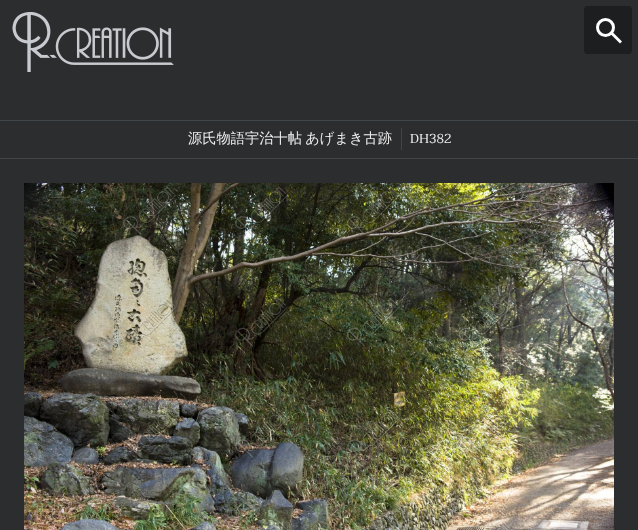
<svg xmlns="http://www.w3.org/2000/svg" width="638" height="530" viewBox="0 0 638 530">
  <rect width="100%" height="100%" fill="#2c2d2f"/>
  <image x="12" y="12" width="162" height="60" href="img1.png"/>
  <rect x="584" y="6" width="48" height="48" rx="4" fill="#1d1e1f"/>
  <circle cx="605.5" cy="27.5" r="8" fill="none" stroke="#ffffff" stroke-width="3"/>
  <path d="M612 31.5L622 41.5L620 43.5L610 33.5Z" fill="#ffffff"/>
  <rect x="0" y="120" width="638" height="1" fill="#40454a"/>
  <rect x="0" y="158" width="638" height="1" fill="#40454a"/>
  <text x="188" y="143" word-spacing="-1" font-family="WenQuanYi Zen Hei" font-size="14.25" font-weight="500" fill="#ededed">源氏物語宇治十帖 あげまき古跡</text>
  <text x="410" y="143" font-family="Taviraj" font-size="13" fill="#ededed">DH382</text>
  <rect x="401" y="128" width="1" height="22" fill="#40454a"/>
  <image x="24" y="183" width="590" height="347" href="img2.png"/>
</svg>
